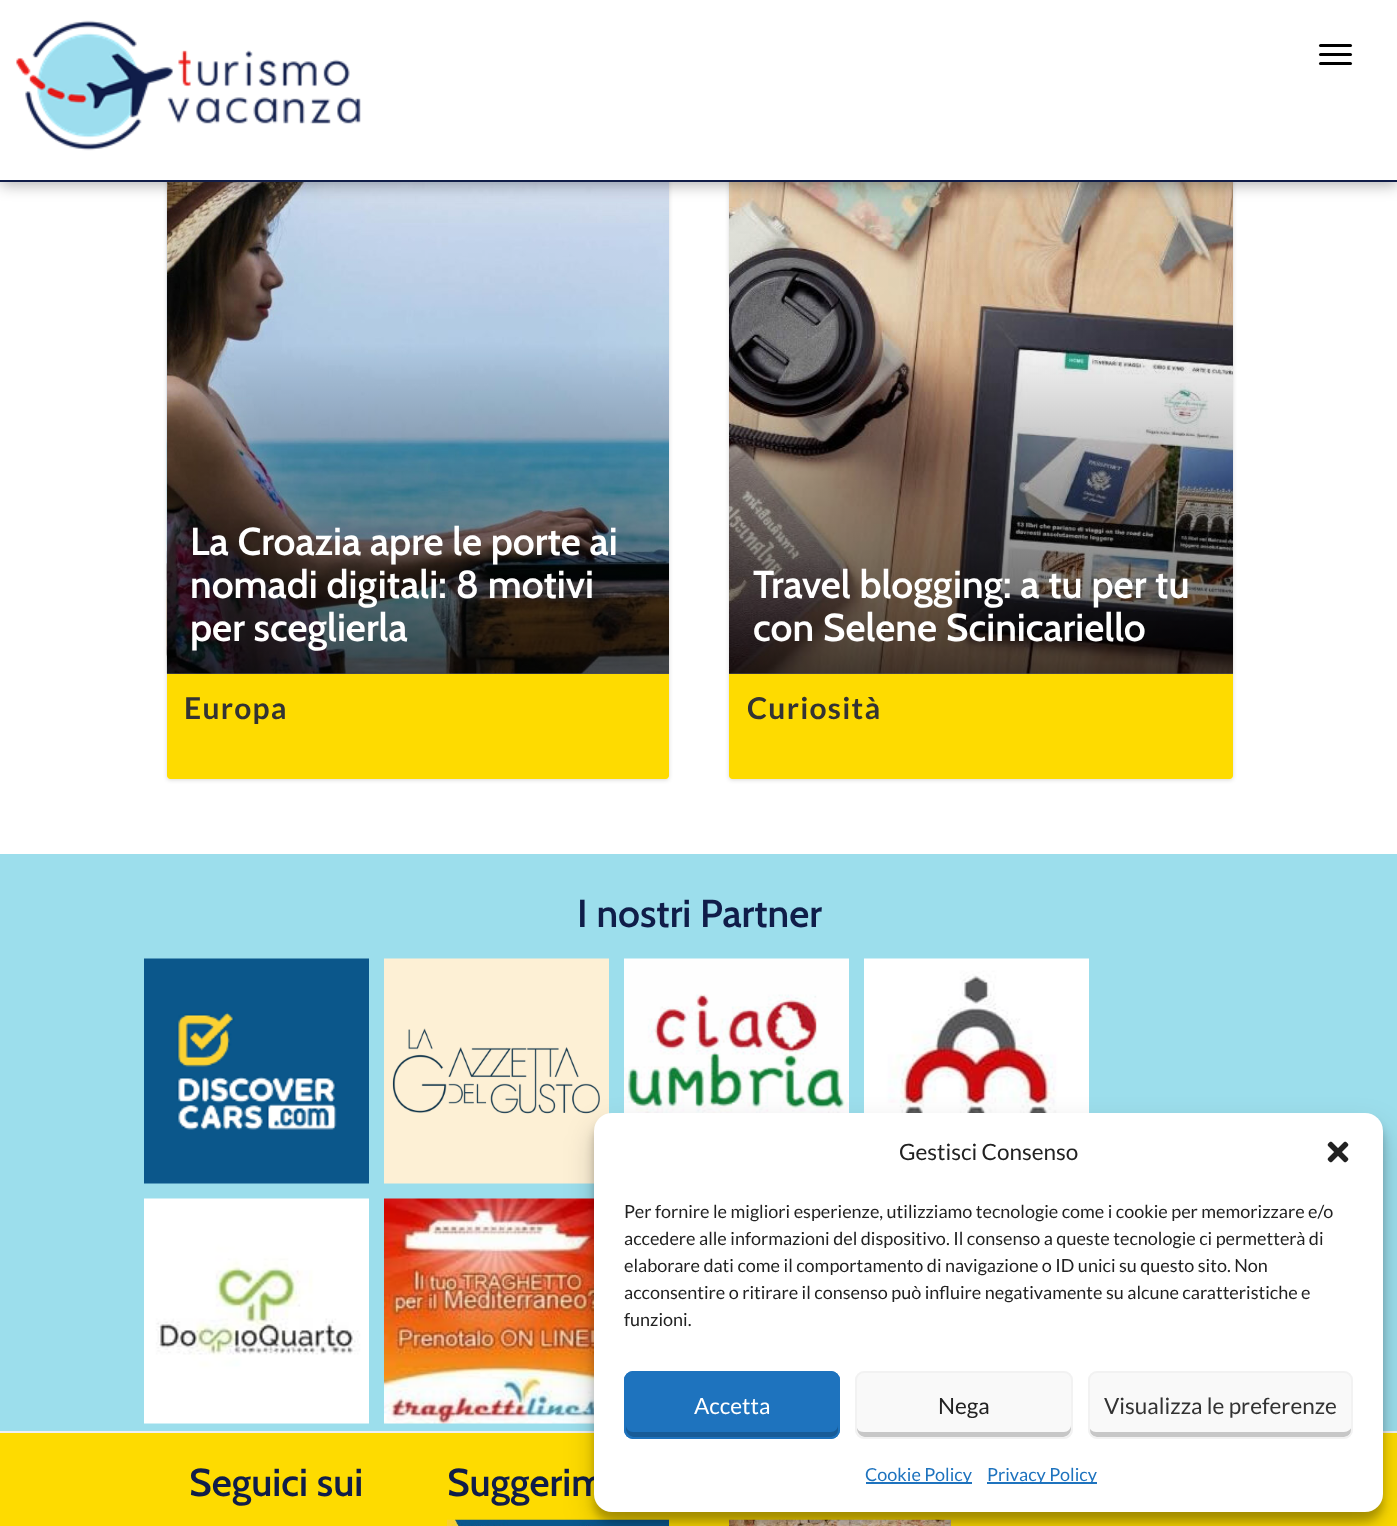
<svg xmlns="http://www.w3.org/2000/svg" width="1397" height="1526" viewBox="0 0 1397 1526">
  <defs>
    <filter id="blur1" x="-50%" y="-200%" width="200%" height="500%"><feGaussianBlur stdDeviation="2"/></filter>
    <linearGradient id="g1" gradientUnits="userSpaceOnUse" x1="418" y1="13" x2="418" y2="674"><stop offset="0.5" stop-color="#000000" stop-opacity="0.03"/><stop offset="1" stop-color="#000000" stop-opacity="0.66"/></linearGradient>
    <linearGradient id="g2" gradientUnits="userSpaceOnUse" x1="981" y1="13" x2="981" y2="674"><stop offset="0.5" stop-color="#000000" stop-opacity="0.03"/><stop offset="1" stop-color="#000000" stop-opacity="0.66"/></linearGradient>
    <filter id="blur2" x="-50%" y="-200%" width="200%" height="500%"><feGaussianBlur stdDeviation="7.5"/></filter>
    <filter id="blur3" x="-50%" y="-200%" width="200%" height="500%"><feGaussianBlur stdDeviation="4.5"/></filter>
    <filter id="blur4" x="-50%" y="-200%" width="200%" height="500%"><feGaussianBlur stdDeviation="15"/></filter>
  </defs>
  <rect width="100%" height="100%" fill="#ffffff"/>
  <rect x="167" y="15" width="502" height="765" rx="3" fill="#000000" fill-opacity="0.15" filter="url(#blur1)"/>
  <rect x="167" y="14" width="502" height="765" rx="3" fill="#ffffff"/>
  <image x="166" y="182" width="503" height="492" href="img2.png"/>
  <rect x="167" y="182" width="502" height="492" fill="url(#g1)"/>
  <rect x="729" y="15" width="504" height="765" rx="3" fill="#000000" fill-opacity="0.15" filter="url(#blur1)"/>
  <rect x="729" y="14" width="504" height="765" rx="3" fill="#ffffff"/>
  <image x="729" y="182" width="504" height="492" href="img3.png"/>
  <rect x="729" y="182" width="504" height="492" fill="url(#g2)"/>
  <rect x="0" y="3" width="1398" height="182" fill="#000000" fill-opacity="0.3" filter="url(#blur2)"/>
  <rect x="0" y="0" width="1397" height="180" fill="#ffffff"/>
  <rect x="0" y="180" width="1397" height="2" fill="#101d49"/>
  <image x="16" y="20" width="345" height="131" href="img1.png"/>
  <rect x="1319" y="44" width="33" height="3" rx="1.5" fill="#000000"/>
  <rect x="1319" y="53" width="33" height="3" rx="1.5" fill="#000000"/>
  <rect x="1319" y="62" width="33" height="3" rx="1.5" fill="#000000"/>
  <text x="190" y="555" font-family="Cabin" font-size="39" font-weight="600" fill="#ffffff">La Croazia apre le porte ai</text>
  <text x="190" y="598" font-family="Cabin" font-size="39" font-weight="600" fill="#ffffff">nomadi digitali: 8 motivi</text>
  <text x="190" y="641" font-family="Cabin" font-size="39" font-weight="600" fill="#ffffff">per sceglierla</text>
  <path d="M167 674H669V776C669 777.5 667.5 779 666 779H170C168.5 779 167 777.5 167 776Z" fill="#fedb00"/>
  <text x="184" y="719" font-family="Lato" font-size="30" font-weight="bold" letter-spacing="1.25" fill="#333333">Europa</text>
  <text x="753" y="598" font-family="Cabin" font-size="39" font-weight="600" fill="#ffffff">Travel blogging: a tu per tu</text>
  <text x="753" y="641" font-family="Cabin" font-size="39" font-weight="600" fill="#ffffff">con Selene Scinicariello</text>
  <path d="M729 674H1233V776C1233 777.5 1231.5 779 1230 779H732C730.5 779 729 777.5 729 776Z" fill="#fedb00"/>
  <text x="747" y="719" font-family="Lato" font-size="30" font-weight="bold" letter-spacing="1.25" fill="#333333">Curiosità</text>
  <rect x="0" y="854" width="1397" height="577" fill="#9cdeec"/>
  <text x="577" y="927" font-family="Cabin" font-size="39" font-weight="600" fill="#101d49">I nostri Partner</text>
  <image x="144" y="958" width="225" height="226" href="img4.png"/>
  <image x="384" y="958" width="225" height="226" href="img5.png"/>
  <image x="624" y="958" width="225" height="155" href="img6.png"/>
  <image x="864" y="958" width="225" height="155" href="img7.png"/>
  <image x="144" y="1198" width="225" height="226" href="img8.png"/>
  <image x="384" y="1198" width="210" height="226" href="img9.png"/>
  <rect x="0" y="1431" width="1397" height="2" fill="#f1f1f1"/>
  <rect x="0" y="1433" width="1397" height="93" fill="#fedb00"/>
  <text x="189" y="1496" font-family="Cabin" font-size="39" font-weight="600" fill="#101d49">Seguici sui</text>
  <text x="447" y="1496" font-family="Cabin" font-size="39" font-weight="600" fill="#101d49">Suggerim</text>
  <image x="447" y="1519" width="222" height="7" href="img10.png"/>
  <image x="729" y="1519" width="222" height="7" href="img11.png"/>
  <rect x="594" y="1122" width="789" height="399" rx="18" fill="#000000" fill-opacity="0.23" filter="url(#blur3)"/>
  <rect x="594" y="1128" width="789" height="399" rx="18" fill="#000000" fill-opacity="0.19" filter="url(#blur4)"/>
  <rect x="594" y="1113" width="789" height="399" rx="18" fill="#ffffff"/>
  <text x="899" y="1160" font-family="Lato" font-size="22.5" fill="#222222">Gestisci Consenso</text>
  <image x="1327" y="1141" width="22" height="22" href="img12.png"/>
  <text x="624" y="1218" font-family="Lato" font-size="18" fill="#222222">Per fornire le migliori esperienze, utilizziamo tecnologie come i cookie per memorizzare e/o</text>
  <text x="624" y="1245" font-family="Lato" font-size="18" fill="#222222">accedere alle informazioni del dispositivo. Il consenso a queste tecnologie ci permetterà di</text>
  <text x="624" y="1272" font-family="Lato" font-size="18" fill="#222222">elaborare dati come il comportamento di navigazione o ID unici su questo sito. Non</text>
  <text x="624" y="1299" font-family="Lato" font-size="18" fill="#222222">acconsentire o ritirare il consenso può influire negativamente su alcune caratteristiche e</text>
  <text x="624" y="1326" font-family="Lato" font-size="18" fill="#222222">funzioni.</text>
  <rect x="624" y="1371" width="216" height="68" rx="9" fill="#1e73be"/>
  <path d="M626 1425V1429C626 1433 630 1437 634 1437H831C835 1437 839 1433 839 1429V1381C839 1380 839 1378 838 1377V1425C838 1429 835 1432 831 1432H633C629 1432 626 1429 626 1425Z" fill="#185c98"/>
  <rect x="625" y="1372" width="214" height="66" rx="8" fill="none" stroke="#1e73be" stroke-width="2"/>
  <text x="694" y="1414" font-family="Lato" font-size="22.5" fill="#ffffff">Accetta</text>
  <rect x="855" y="1371" width="218" height="68" rx="9" fill="#f9f9f9"/>
  <path d="M857 1428V1429C857 1433 861 1437 865 1437H1063C1067 1437 1071 1433 1071 1429V1425C1071 1429 1068 1432 1064 1432H864C861 1432 858 1431 857 1428Z" fill="#c7c7c7"/>
  <rect x="856" y="1372" width="216" height="66" rx="8" fill="none" stroke="#f2f2f2" stroke-width="2"/>
  <text x="938" y="1414" font-family="Lato" font-size="22.5" fill="#222222">Nega</text>
  <rect x="1088" y="1371" width="265" height="68" rx="9" fill="#f9f9f9"/>
  <path d="M1089 1425V1429C1089 1433 1093 1437 1097 1437H1344C1348 1437 1352 1433 1352 1429V1425C1352 1429 1348 1432 1344 1432H1096C1092 1432 1089 1429 1089 1425Z" fill="#c7c7c7"/>
  <rect x="1089" y="1372" width="263" height="66" rx="8" fill="none" stroke="#f2f2f2" stroke-width="2"/>
  <text x="1104" y="1414" font-family="Lato" font-size="22.5" fill="#333333">Visualizza le preferenze</text>
  <rect x="866" y="1482" width="106" height="2" fill="#1e73be"/>
  <text x="865" y="1481" font-family="Lato" font-size="18" fill="#1e73be">Cookie Policy</text>
  <rect x="987" y="1482" width="110" height="2" fill="#1e73be"/>
  <text x="987" y="1481" font-family="Lato" font-size="18" fill="#1e73be">Privacy Policy</text>
</svg>
